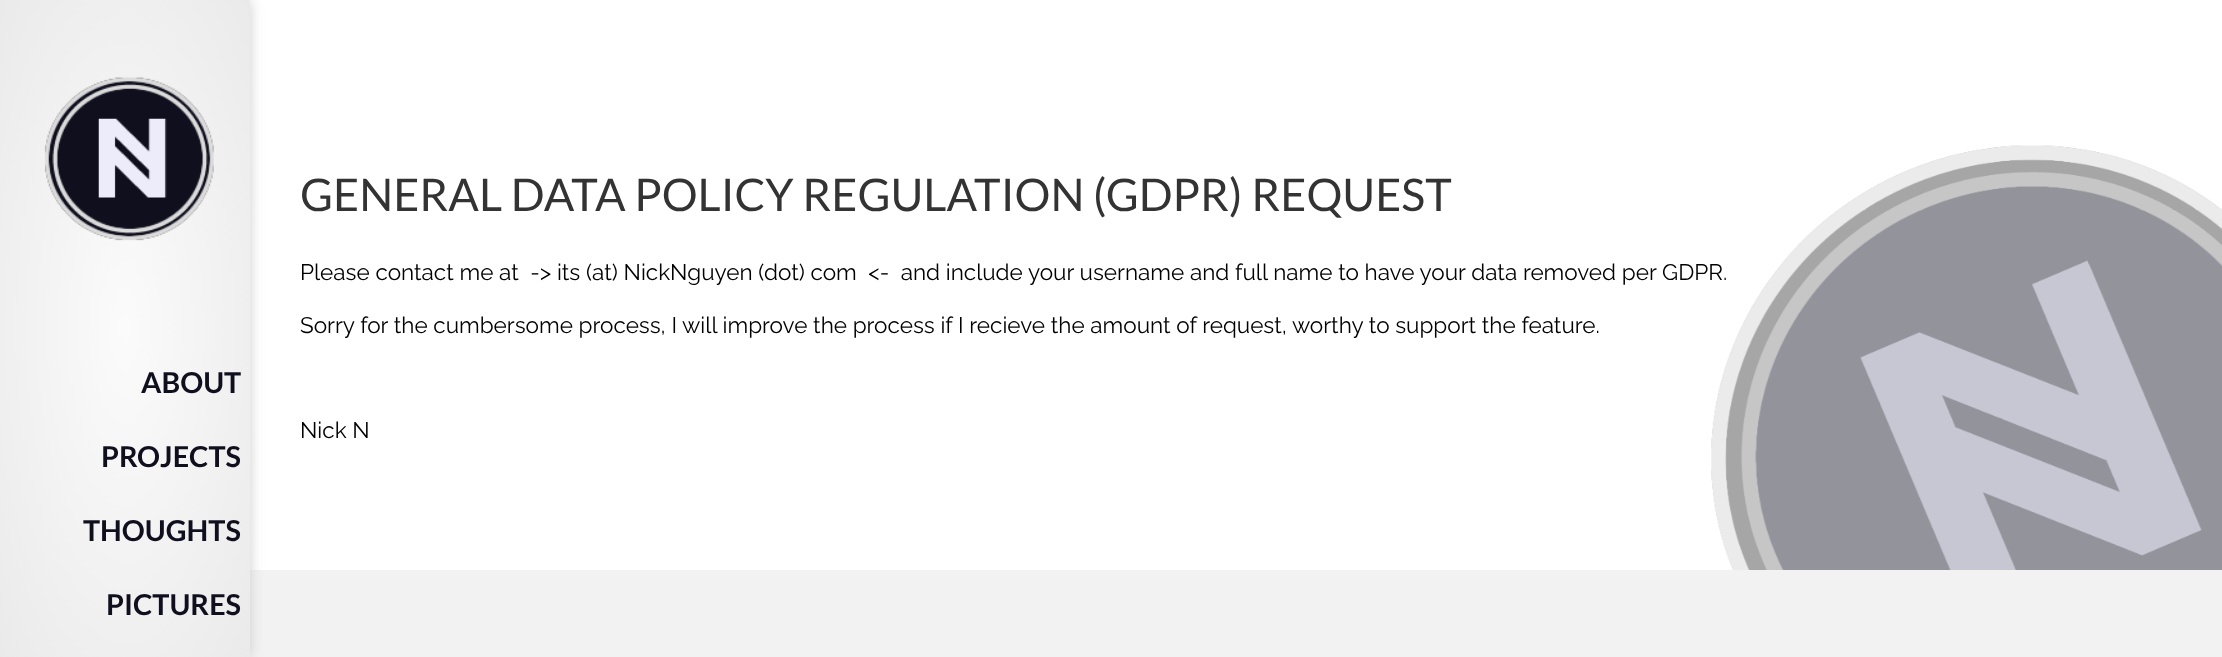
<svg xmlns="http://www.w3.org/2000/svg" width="2222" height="657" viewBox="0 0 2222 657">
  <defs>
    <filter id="blur1" x="-50%" y="-200%" width="200%" height="500%"><feGaussianBlur stdDeviation="7"/></filter>
    <radialGradient id="g1" gradientUnits="userSpaceOnUse" cx="0" cy="0" r="1" gradientTransform="matrix(177 0 0 465 125 329)"><stop offset="0" stop-color="#fbfbfb"/><stop offset="1" stop-color="#eaeaea"/></radialGradient>
  </defs>
  <rect width="100%" height="100%" fill="#f2f2f2"/>
  <rect x="250" y="0" width="1972" height="570" fill="#ffffff"/>
  <image x="1711" y="145" width="511" height="425" href="img1.png"/>
  <text x="300" y="211" font-family="Lato" font-size="45" fill="#333333">GENERAL DATA POLICY REGULATION (GDPR) REQUEST</text>
  <text x="300" y="280" font-family="Raleway" font-size="22.5" fill="#000000" xml:space="preserve">Please contact me at  -&gt; its (at) NickNguyen (dot) com  &lt;-  and include your username and full name to have your data removed per GDPR.</text>
  <text x="300" y="333" font-family="Raleway" font-size="22.5" fill="#000000">Sorry for the cumbersome process, I will improve the process if I recieve the amount of request, worthy to support the feature.</text>
  <text x="300" y="438" font-family="Raleway" font-size="22.5" fill="#000000">Nick N</text>
  <rect x="0" y="0" width="250" height="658" fill="#cecece" filter="url(#blur1)"/>
  <rect x="0" y="0" width="250" height="657" fill="url(#g1)"/>
  <image x="44" y="77" width="170" height="164" href="img2.png"/>
  <text x="141" y="393" font-family="Lato" font-size="28.75" font-weight="bold" fill="#100f1d">ABOUT</text>
  <text x="101" y="467" font-family="Lato" font-size="28.75" font-weight="bold" fill="#100f1d">PROJECTS</text>
  <text x="83" y="541" font-family="Lato" font-size="28.75" font-weight="bold" fill="#100f1d">THOUGHTS</text>
  <text x="106" y="615" font-family="Lato" font-size="28.75" font-weight="bold" fill="#100f1d">PICTURES</text>
</svg>
